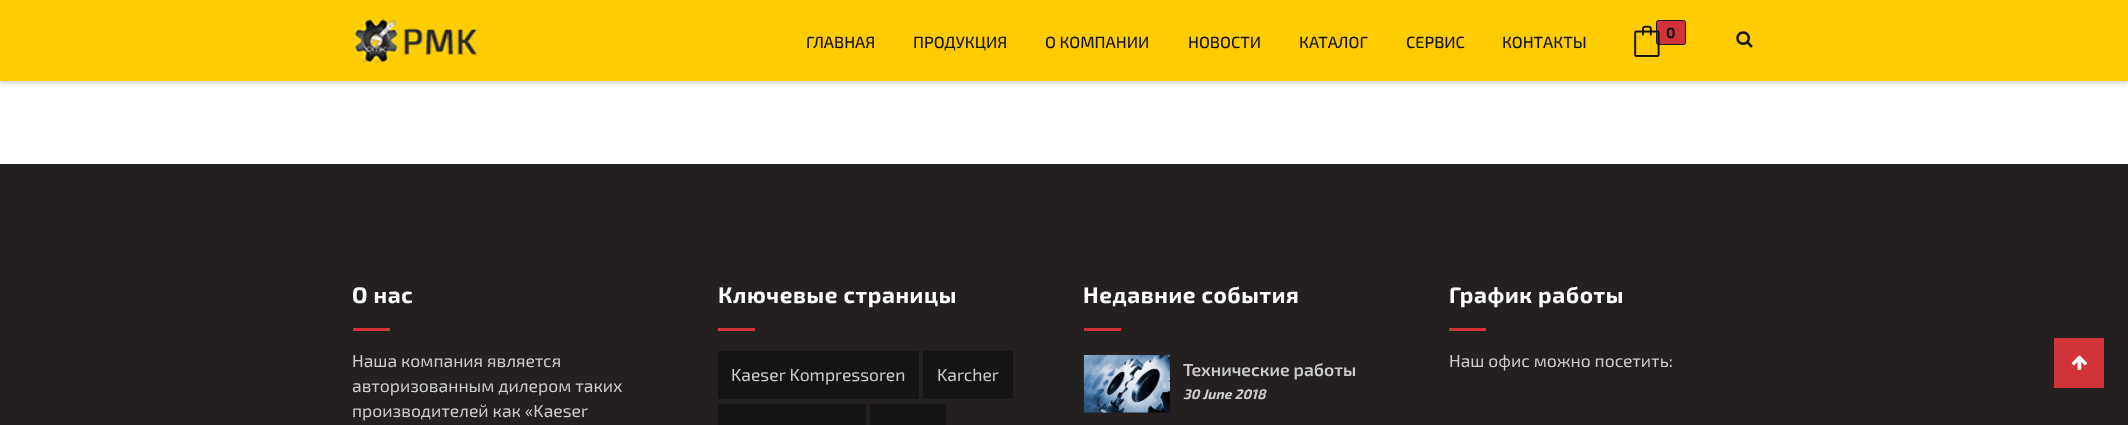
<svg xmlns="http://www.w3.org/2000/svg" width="2128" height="425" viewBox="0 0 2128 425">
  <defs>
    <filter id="blur1" x="-50%" y="-200%" width="200%" height="500%"><feGaussianBlur stdDeviation="2.5"/></filter>
  </defs>
  <rect width="100%" height="100%" fill="#ffffff"/>
  <rect x="0" y="1" width="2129" height="82" fill="#000000" fill-opacity="0.2" filter="url(#blur1)"/>
  <rect x="0" y="0" width="2128" height="81" fill="#ffcc00"/>
  <image x="354" y="18" width="124" height="45" href="img1.png"/>
  <text x="806" y="48" font-family="'Exo 2'" font-size="16.25" font-weight="500" fill="#141414">ГЛАВНАЯ</text>
  <text x="913" y="48" font-family="'Exo 2'" font-size="16.25" font-weight="500" fill="#141414">ПРОДУКЦИЯ</text>
  <text x="1045" y="48" font-family="'Exo 2'" font-size="16.25" font-weight="500" fill="#141414">О КОМПАНИИ</text>
  <text x="1188" y="48" font-family="'Exo 2'" font-size="16.25" font-weight="500" fill="#141414">НОВОСТИ</text>
  <text x="1299" y="48" font-family="'Exo 2'" font-size="16.25" font-weight="500" fill="#141414">КАТАЛОГ</text>
  <text x="1406" y="48" font-family="'Exo 2'" font-size="16.25" font-weight="500" fill="#141414">СЕРВИС</text>
  <text x="1502" y="48" font-family="'Exo 2'" font-size="16.25" font-weight="500" fill="#141414">КОНТАКТЫ</text>
  <rect x="1656.5" y="20.5" width="29" height="24" rx="2" fill="#d13339" stroke="#141414"/>
  <image x="1634" y="25" width="26" height="32" href="img2.png"/>
  <text x="1666" y="38" font-family="'Exo 2'" font-size="15" font-weight="bold" fill="#141414">0</text>
  <image x="1736" y="31" width="17" height="17" href="img3.png"/>
  <rect x="0" y="164" width="2128" height="261" fill="#24201f"/>
  <text x="352" y="303" font-family="'Exo 2'" font-size="22.5" font-weight="bold" letter-spacing="0.6" fill="#ffffff">О нас</text>
  <rect x="353" y="328" width="37" height="3" fill="#d13339"/>
  <text x="352" y="367" font-family="'Exo 2'" font-size="17.5" fill="#cccccc">Наша компания является</text>
  <text x="352" y="392" font-family="'Exo 2'" font-size="17.5" fill="#cccccc">авторизованным дилером таких</text>
  <text x="352" y="417" font-family="'Exo 2'" font-size="17.5" fill="#cccccc">производителей как «Kaeser</text>
  <text x="718" y="303" font-family="'Exo 2'" font-size="22.5" font-weight="bold" letter-spacing="0.6" fill="#ffffff">Ключевые страницы</text>
  <rect x="718" y="328" width="37" height="3" fill="#d13339"/>
  <rect x="718.5" y="351.5" width="200" height="47" rx="0.5" fill="#141414" stroke="#141414"/>
  <text x="731" y="381" font-family="'Exo 2'" font-size="17.5" fill="#cccccc">Kaeser Kompressoren</text>
  <rect x="923.5" y="351.5" width="89" height="47" rx="0.5" fill="#141414" stroke="#141414"/>
  <text x="937" y="381" font-family="'Exo 2'" font-size="17.5" fill="#cccccc">Karcher</text>
  <rect x="718.5" y="404.5" width="147" height="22" rx="0.5" fill="#141414" stroke="#141414"/>
  <rect x="870.5" y="404.5" width="75" height="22" rx="0.5" fill="#141414" stroke="#141414"/>
  <text x="1083" y="303" font-family="'Exo 2'" font-size="22.5" font-weight="bold" letter-spacing="0.6" fill="#ffffff">Недавние события</text>
  <rect x="1084" y="328" width="37" height="3" fill="#d13339"/>
  <image x="1083" y="355" width="87" height="58" href="img4.png"/>
  <text x="1183" y="376" font-family="'Exo 2'" font-size="17.5" font-weight="600" fill="#cccccc">Технические работы</text>
  <text x="1183" y="399" font-family="'Exo 2'" font-size="13.75" font-weight="bold" font-style="italic" fill="#cccccc">30 June 2018</text>
  <text x="1449" y="303" font-family="'Exo 2'" font-size="22.5" font-weight="bold" letter-spacing="0.6" fill="#ffffff">График работы</text>
  <rect x="1449" y="328" width="37" height="3" fill="#d13339"/>
  <text x="1449" y="367" font-family="'Exo 2'" font-size="17.5" fill="#cccccc">Наш офис можно посетить:</text>
  <rect x="2054" y="338" width="50" height="50" fill="#d13339"/>
  <image x="2071" y="355" width="16" height="15" href="img5.png"/>
</svg>
